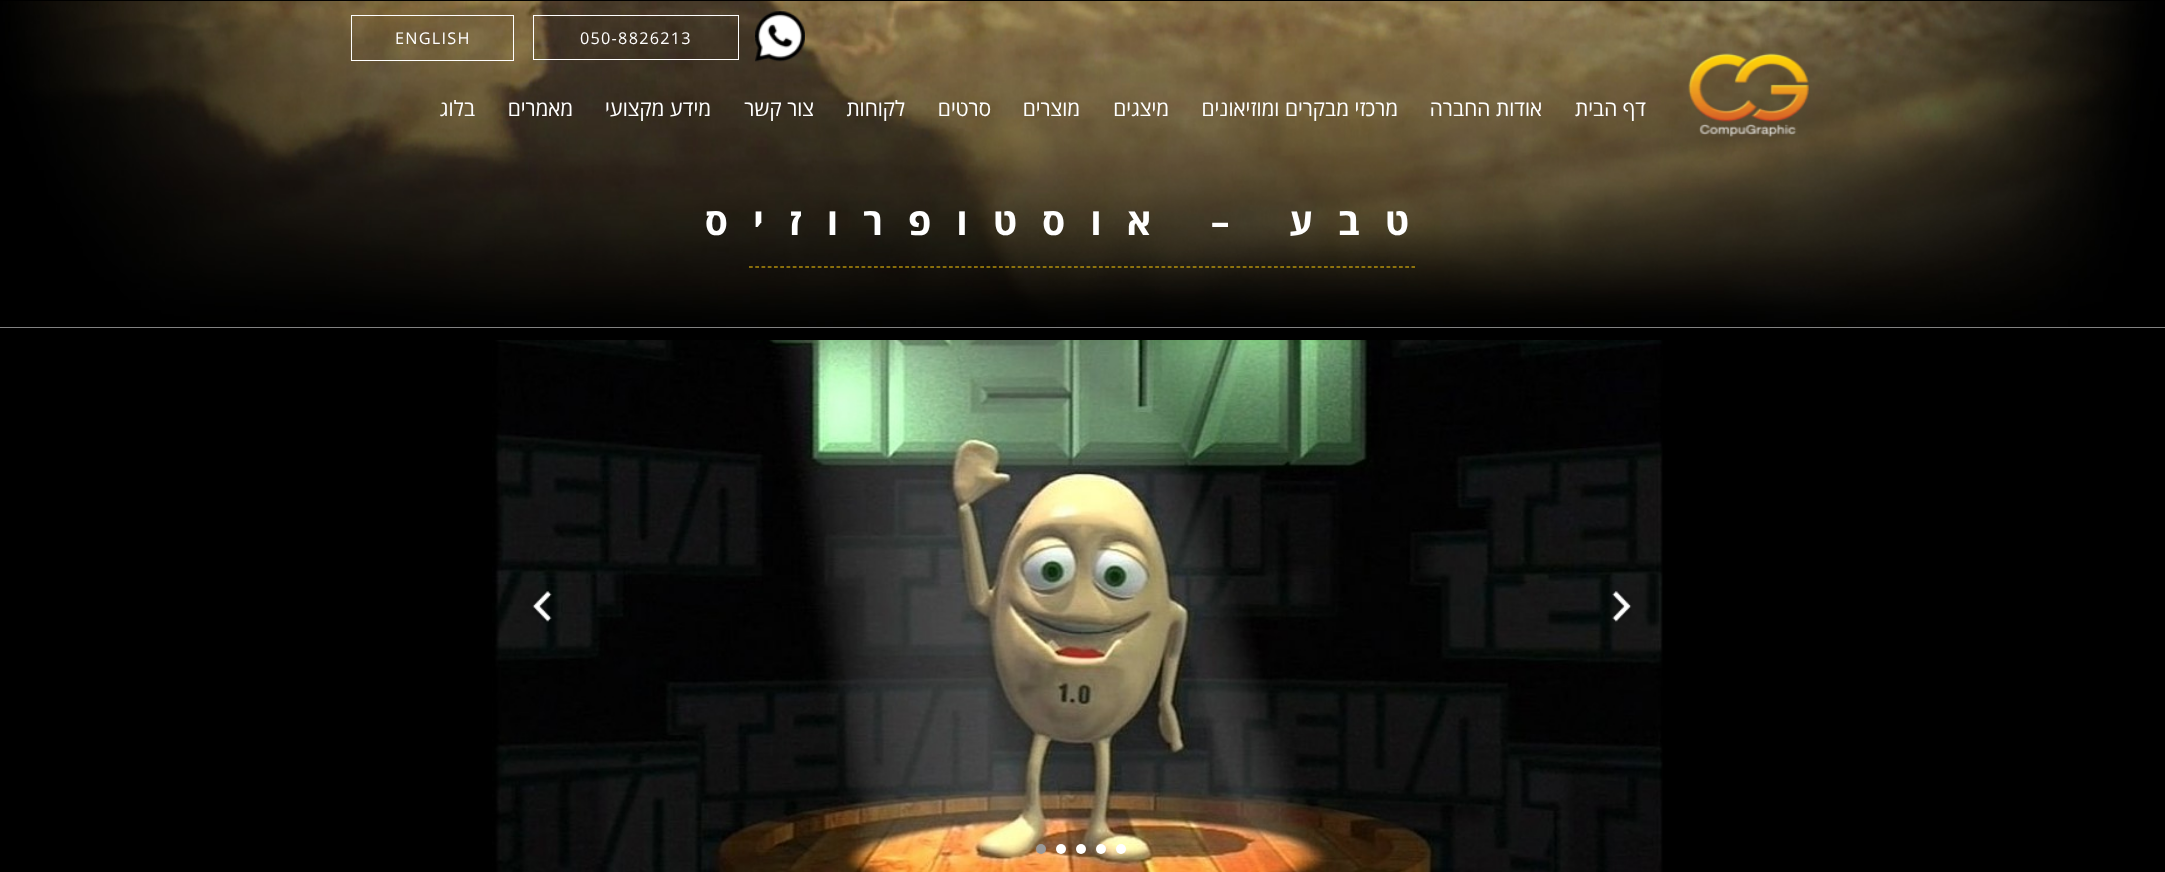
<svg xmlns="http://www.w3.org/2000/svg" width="2165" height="872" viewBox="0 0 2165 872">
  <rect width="100%" height="100%" fill="#000000"/>
  <rect x="0" y="327" width="2165" height="1" fill="#e6e6e6"/>
  <image x="0" y="1" width="2165" height="327" href="img3.png"/>
  <image x="755" y="11" width="50" height="51" href="img1.png"/>
  <rect x="533.5" y="15.5" width="205" height="44" fill="none" stroke="#ffffff"/>
  <text x="580" y="44" font-family="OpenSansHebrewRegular" font-size="16.25" letter-spacing="1.25" fill="#ffffff">050-8826213</text>
  <rect x="351.5" y="15.5" width="162" height="45" fill="none" stroke="#ffffff"/>
  <text x="395" y="44" font-family="OpenSansHebrewRegular" font-size="16.25" letter-spacing="1.25" fill="#ffffff">ENGLISH</text>
  <image x="1688" y="53" width="121" height="85" href="img2.png"/>
  <text x="1646" y="116" font-family="OpenSansHebrewRegular" font-size="21.25" direction="rtl" fill="#ffffff">דף הבית</text>
  <text x="1542" y="116" font-family="OpenSansHebrewRegular" font-size="21.25" direction="rtl" fill="#ffffff">אודות החברה</text>
  <text x="1398" y="116" font-family="OpenSansHebrewRegular" font-size="21.25" direction="rtl" fill="#ffffff">מרכזי מבקרים ומוזיאונים</text>
  <text x="1169" y="116" font-family="OpenSansHebrewRegular" font-size="21.25" direction="rtl" fill="#ffffff">מיצגים</text>
  <text x="1080" y="116" font-family="OpenSansHebrewRegular" font-size="21.25" direction="rtl" fill="#ffffff">מוצרים</text>
  <text x="991" y="116" font-family="OpenSansHebrewRegular" font-size="21.25" direction="rtl" fill="#ffffff">סרטים</text>
  <text x="905" y="116" font-family="OpenSansHebrewRegular" font-size="21.25" direction="rtl" fill="#ffffff">לקוחות</text>
  <text x="814" y="116" font-family="OpenSansHebrewRegular" font-size="21.25" direction="rtl" fill="#ffffff">צור קשר</text>
  <text x="711" y="116" font-family="OpenSansHebrewRegular" font-size="21.25" direction="rtl" fill="#ffffff">מידע מקצועי</text>
  <text x="573" y="116" font-family="OpenSansHebrewRegular" font-size="21.25" direction="rtl" fill="#ffffff">מאמרים</text>
  <text x="475" y="116" font-family="OpenSansHebrewRegular" font-size="21.25" direction="rtl" fill="#ffffff">בלוג</text>
  <text x="1434" y="235" font-family="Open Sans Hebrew" font-size="37.5" font-weight="bold" letter-spacing="25" direction="rtl" fill="#ffffff">טבע – אוסטופרוזיס</text>
  <path d="M749 267H1415" fill="none" stroke="#fbca0c" stroke-width="1.2" stroke-dasharray="3.75 2.5"/>
  <image x="492" y="340" width="1171" height="532" href="img4.png"/>
  <circle cx="1121" cy="849" r="5" fill="#ffffff"/>
  <circle cx="1101" cy="849" r="5" fill="#ffffff"/>
  <circle cx="1081" cy="849" r="5" fill="#ffffff"/>
  <circle cx="1061" cy="849" r="5" fill="#ffffff"/>
  <circle cx="1041" cy="849" r="5" fill="#999999"/>
  <image x="1612" y="591" width="20" height="31" href="img5.png"/>
  <image x="532" y="591" width="20" height="31" href="img6.png"/>
</svg>
